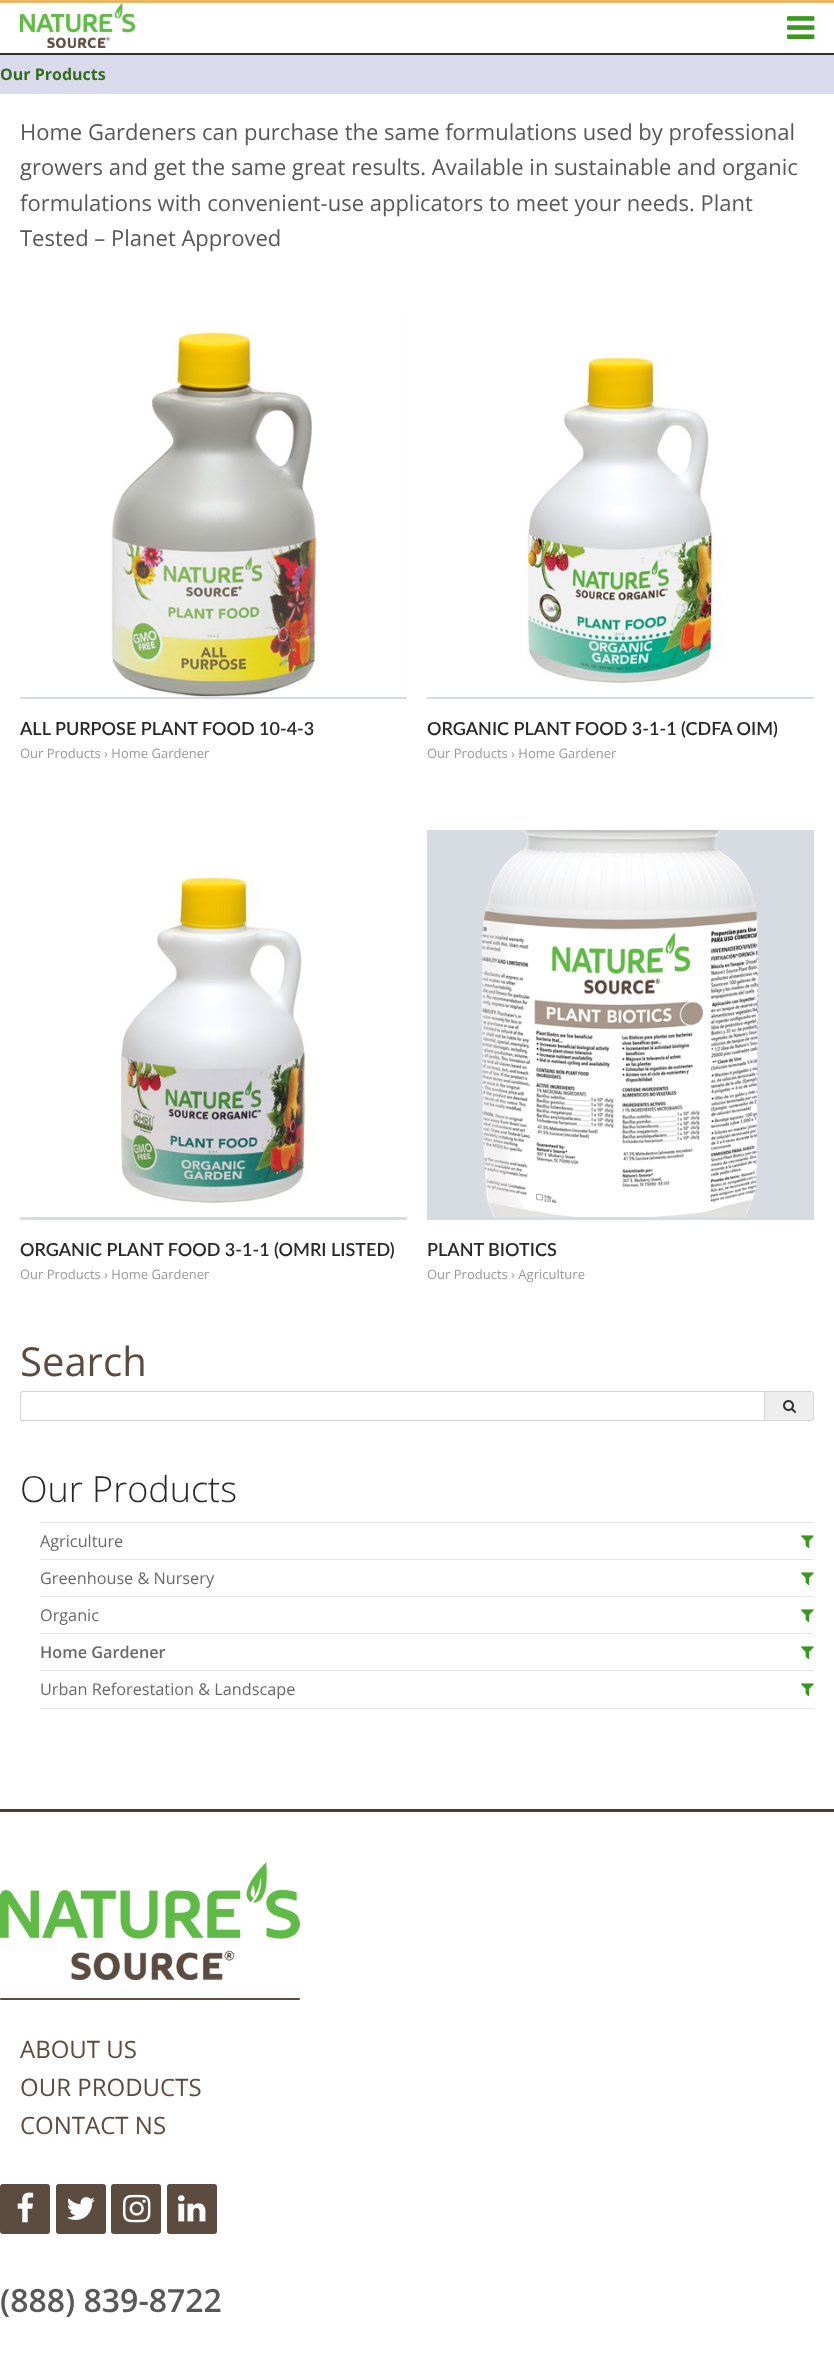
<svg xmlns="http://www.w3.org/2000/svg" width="834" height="2363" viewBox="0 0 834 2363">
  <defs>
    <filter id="blur1" x="-50%" y="-200%" width="200%" height="500%"><feGaussianBlur stdDeviation="1.5"/></filter>
  </defs>
  <rect width="100%" height="100%" fill="#ffffff"/>
  <rect x="0" y="53" width="834" height="2" fill="#363636"/>
  <rect x="0" y="55" width="834" height="39" fill="#dbdaec"/>
  <rect x="0" y="0" width="834" height="53" fill="#000000" fill-opacity="0.5" filter="url(#blur1)"/>
  <rect x="0" y="3" width="834" height="50" fill="#ffffff"/>
  <rect x="0" y="0" width="834" height="3" fill="#ecb764"/>
  <image x="20" y="3" width="115" height="45" href="img1.png"/>
  <image x="787" y="16" width="28" height="23" href="img2.png"/>
  <text x="0" y="80" font-family="Open Sans" font-size="16" font-weight="bold" fill="#2f6e1d">Our Products</text>
  <text x="20" y="140" font-family="Open Sans" font-size="22" fill="#585858">Home Gardeners can purchase the same formulations used by professional</text>
  <text x="20" y="175" font-family="Open Sans" font-size="22" fill="#585858">growers and get the same great results. Available in sustainable and organic</text>
  <text x="20" y="211" font-family="Open Sans" font-size="22" fill="#585858">formulations with convenient-use applicators to meet your needs. Plant</text>
  <text x="20" y="246" font-family="Open Sans" font-size="22" fill="#585858">Tested – Planet Approved</text>
  <rect x="20" y="310" width="387" height="389" fill="#d6dce2"/>
  <image x="20" y="310" width="387" height="387" href="img3.png"/>
  <text x="20" y="735" font-family="Lato" font-size="18" font-weight="600" fill="#292929">ALL PURPOSE PLANT FOOD 10-4-3</text>
  <text x="20" y="758" font-family="Open Sans" font-size="13" fill="#999999">Our Products › Home Gardener</text>
  <rect x="427" y="697" width="387" height="2" fill="#d6dce2"/>
  <image x="427" y="310" width="387" height="387" href="img4.png"/>
  <text x="427" y="735" font-family="Lato" font-size="18" font-weight="600" fill="#292929">ORGANIC PLANT FOOD 3-1-1 (CDFA OIM)</text>
  <text x="427" y="758" font-family="Open Sans" font-size="13" fill="#999999">Our Products › Home Gardener</text>
  <rect x="20" y="1217" width="387" height="3" fill="#d6dce2"/>
  <image x="20" y="830" width="387" height="387" href="img5.png"/>
  <text x="20" y="1256" font-family="Lato" font-size="18" font-weight="600" fill="#292929">ORGANIC PLANT FOOD 3-1-1 (OMRI LISTED)</text>
  <text x="20" y="1279" font-family="Open Sans" font-size="13" fill="#999999">Our Products › Home Gardener</text>
  <rect x="427" y="830" width="387" height="390" fill="#d6dce2"/>
  <image x="481" y="830" width="278" height="387" href="img6.png"/>
  <text x="427" y="1256" font-family="Lato" font-size="18" font-weight="600" fill="#292929">PLANT BIOTICS</text>
  <text x="427" y="1279" font-family="Open Sans" font-size="13" fill="#999999">Our Products › Agriculture</text>
  <text x="20" y="1376" font-family="Open Sans" font-size="40" fill="#5c4b3f">Search</text>
  <path d="M23 1391H764V1421H23C21 1421 20 1420 20 1418V1394C20 1392 21 1391 23 1391ZM23 1392H764V1420H23C22 1420 21 1419 21 1418V1394C21 1393 22 1392 23 1392Z" fill="#d4d4d4" fill-rule="evenodd"/>
  <path d="M764.5 1391.5H811C812.5 1391.5 813.5 1392.5 813.5 1394V1418C813.5 1419.5 812.5 1420.5 811 1420.5H764.5Z" fill="#eeeeee" stroke="#d4d4d4"/>
  <image x="783" y="1400" width="13" height="13" href="img7.png"/>
  <text x="20" y="1502" font-family="Open Sans" font-size="36" font-weight="300" fill="#292929">Our Products</text>
  <rect x="40" y="1522" width="774" height="1" fill="#e6e6e6"/>
  <rect x="40" y="1559" width="774" height="1" fill="#e6e6e6"/>
  <text x="40" y="1547" font-family="Open Sans" font-size="16.25" fill="#696969">Agriculture</text>
  <image x="801" y="1535" width="13" height="14" href="img8.png"/>
  <rect x="40" y="1596" width="774" height="1" fill="#e6e6e6"/>
  <text x="40" y="1584" font-family="Open Sans" font-size="16.25" fill="#696969">Greenhouse &amp; Nursery</text>
  <image x="801" y="1572" width="13" height="14" href="img8.png"/>
  <rect x="40" y="1633" width="774" height="1" fill="#e6e6e6"/>
  <text x="40" y="1621" font-family="Open Sans" font-size="16.25" fill="#696969">Organic</text>
  <image x="801" y="1609" width="13" height="14" href="img8.png"/>
  <rect x="40" y="1670" width="774" height="1" fill="#e6e6e6"/>
  <text x="40" y="1658" font-family="Open Sans" font-size="16.25" font-weight="600" fill="#696969">Home Gardener</text>
  <image x="801" y="1646" width="13" height="14" href="img8.png"/>
  <rect x="40" y="1708" width="774" height="1" fill="#e6e6e6"/>
  <text x="40" y="1695" font-family="Open Sans" font-size="16.25" fill="#696969">Urban Reforestation &amp; Landscape</text>
  <image x="801" y="1683" width="13" height="14" href="img8.png"/>
  <rect x="0" y="1809" width="834" height="3" fill="#4d3d30"/>
  <image x="0" y="1862" width="300" height="138" href="img9.png"/>
  <text x="20" y="2058" font-family="Open Sans" font-size="24" fill="#5c4b3f">ABOUT US</text>
  <text x="20" y="2096" font-family="Open Sans" font-size="24" fill="#5c4b3f">OUR PRODUCTS</text>
  <text x="20" y="2134" font-family="Open Sans" font-size="24" fill="#5c4b3f">CONTACT NS</text>
  <rect x="0" y="2184" width="50" height="50" rx="3" fill="#5c4b3f"/>
  <image x="17" y="2192" width="17" height="31" href="img10.png"/>
  <rect x="56" y="2184" width="50" height="50" rx="3" fill="#5c4b3f"/>
  <image x="67" y="2197" width="28" height="23" href="img11.png"/>
  <rect x="111" y="2184" width="50" height="50" rx="3" fill="#5c4b3f"/>
  <image x="123" y="2194" width="28" height="29" href="img12.png"/>
  <rect x="167" y="2184" width="50" height="50" rx="3" fill="#5c4b3f"/>
  <image x="178" y="2195" width="28" height="27" href="img13.png"/>
  <text x="0" y="2312" font-family="Open Sans" font-size="32" font-weight="600" fill="#585858">(888) 839-8722</text>
</svg>
